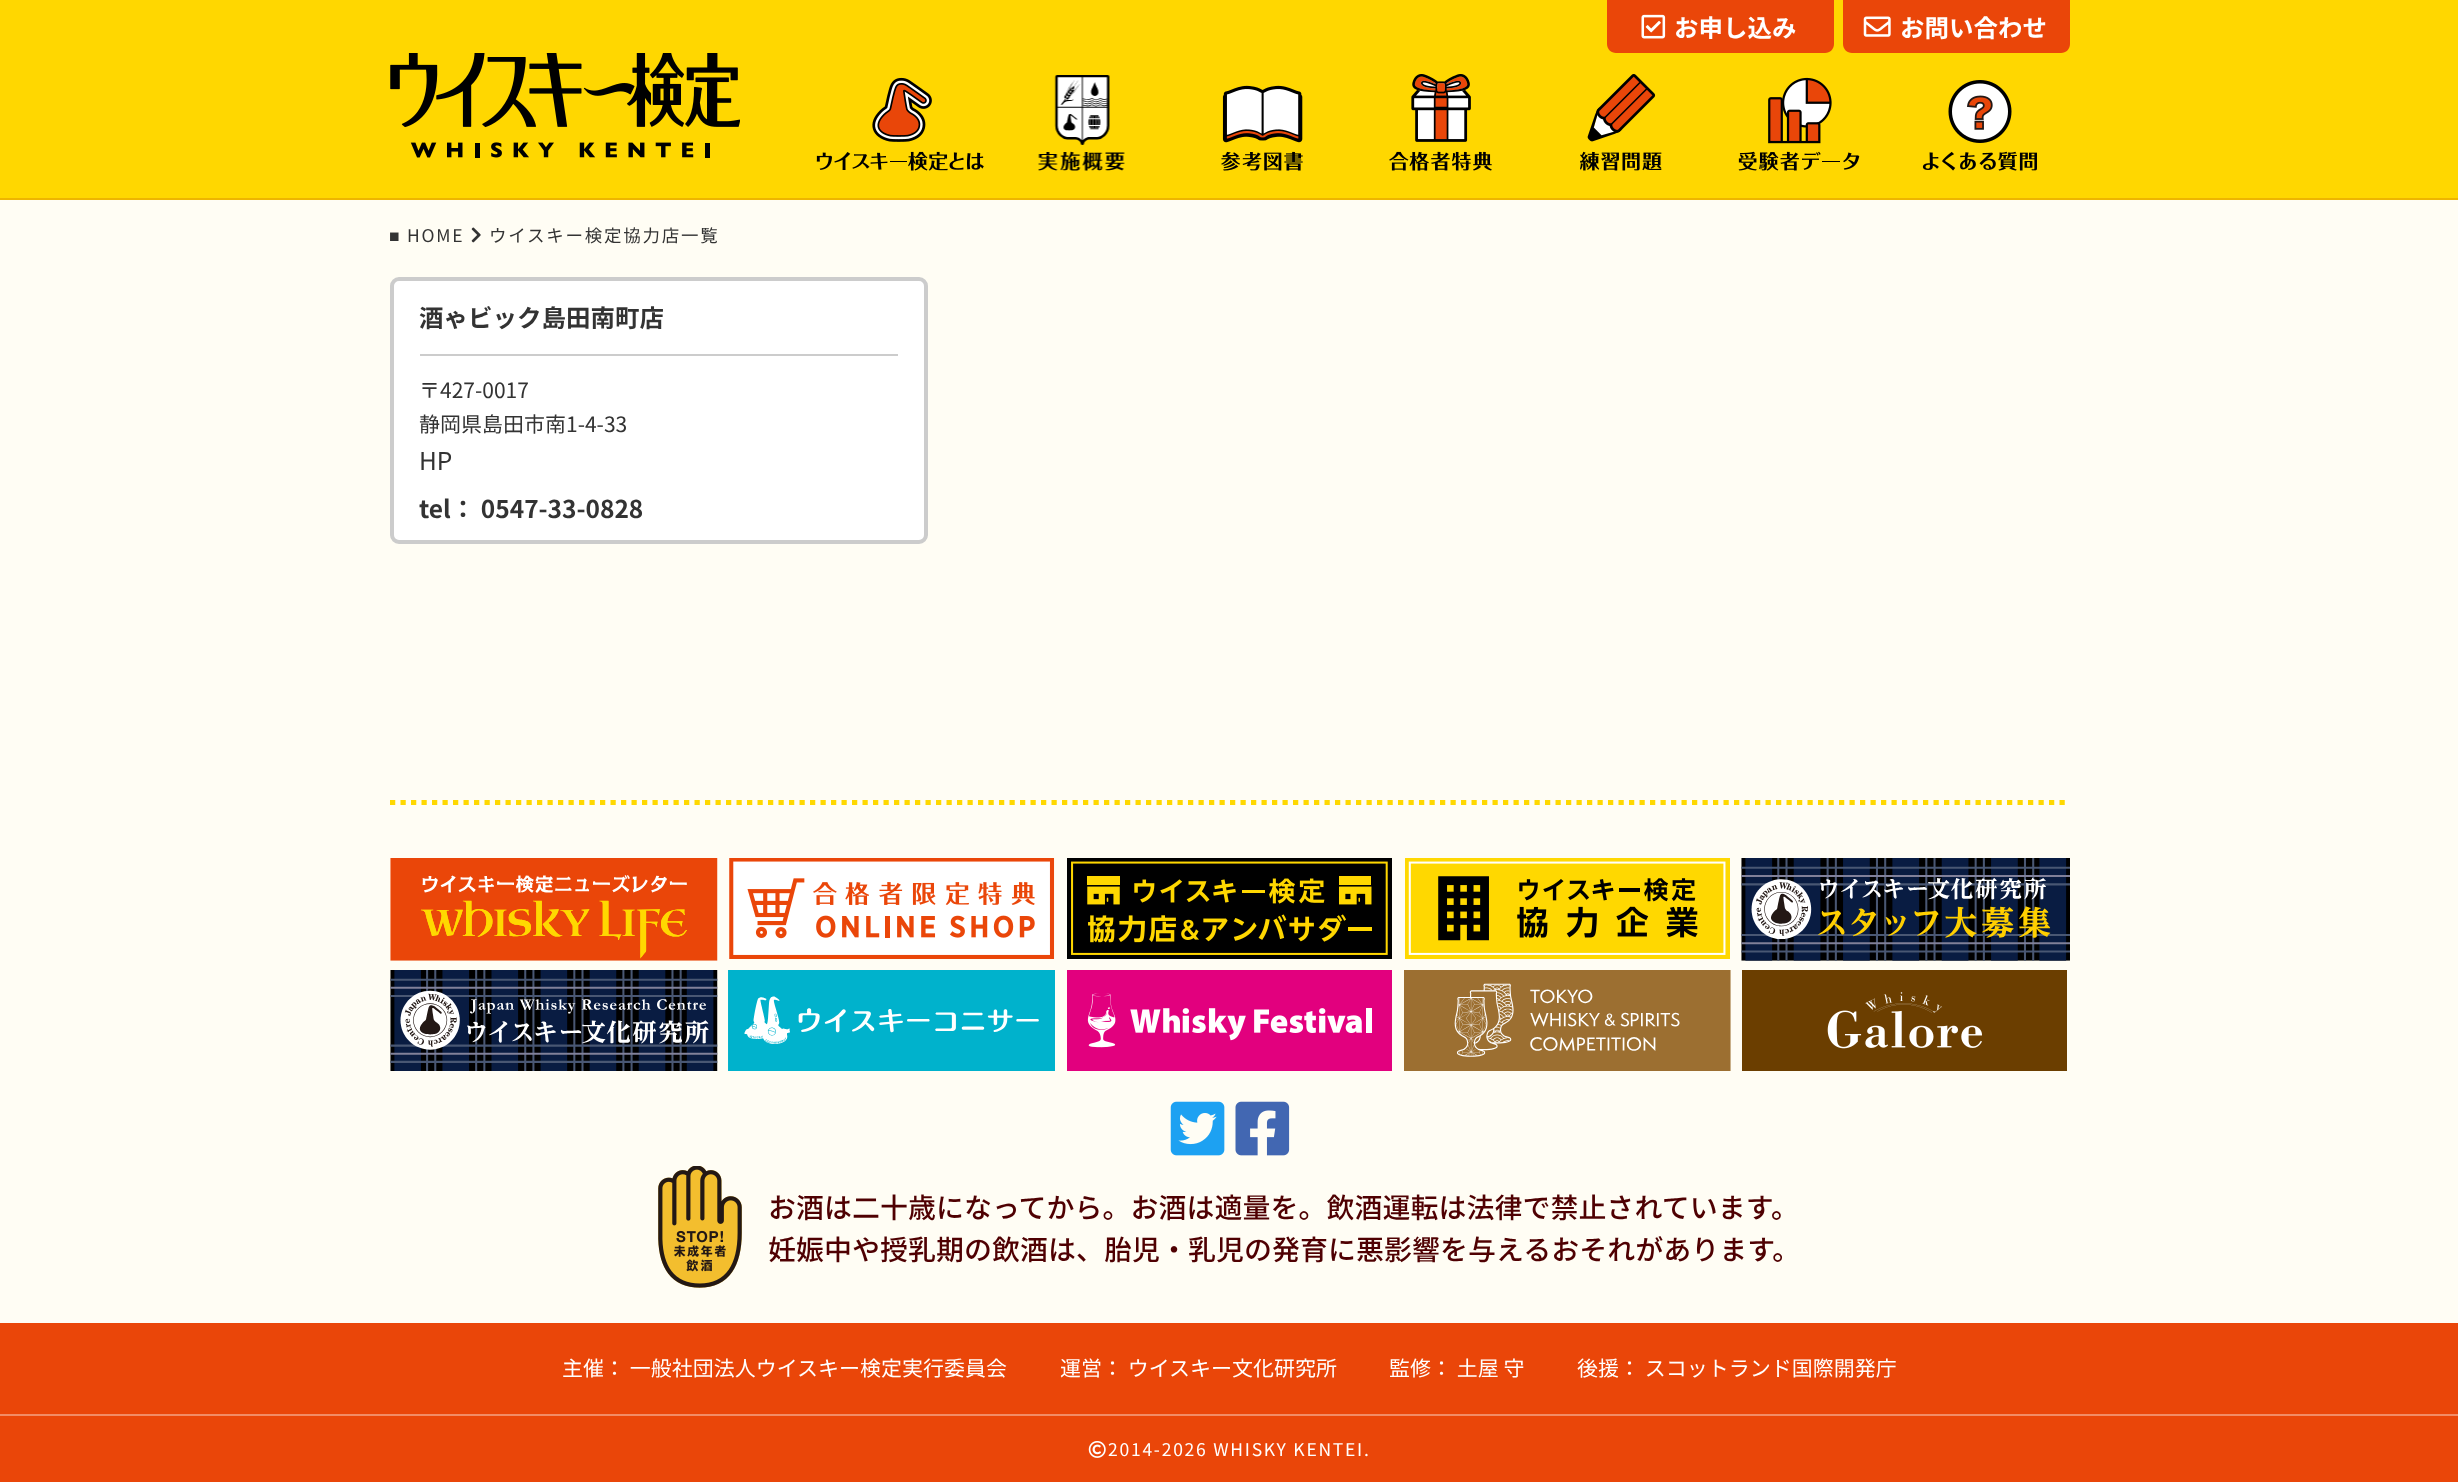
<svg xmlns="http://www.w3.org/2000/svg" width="2458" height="1482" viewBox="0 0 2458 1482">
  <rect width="100%" height="100%" fill="#fffdf4"/>
  <rect x="0" y="0" width="2458" height="198" fill="#ffd700"/>
  <rect x="0" y="198" width="2458" height="2" fill="#eeb500"/>
  <path d="M1607 0H1834V44C1834 49 1830 53 1825 53H1616C1611 53 1607 49 1607 44Z" fill="#ea4609"/>
  <image x="1641" y="14" width="25" height="25" href="img1.png"/>
  <text x="1674" y="37" font-family="Noto Sans JP" font-size="24.5" font-weight="bold" fill="#ffffff">お申し込み</text>
  <path d="M1843 0H2070V44C2070 49 2066 53 2061 53H1852C1847 53 1843 49 1843 44Z" fill="#ea4609"/>
  <image x="1863" y="16" width="28" height="21" href="img2.png"/>
  <text x="1900" y="37" font-family="Noto Sans JP" font-size="24.5" font-weight="bold" fill="#ffffff">お問い合わせ</text>
  <image x="390" y="53" width="350" height="105" href="img3.png"/>
  <image x="816" y="77" width="168" height="94" href="img4.png"/>
  <image x="1038" y="75" width="87" height="96" href="img5.png"/>
  <image x="1221" y="85" width="82" height="86" href="img6.png"/>
  <image x="1389" y="74" width="103" height="97" href="img7.png"/>
  <image x="1580" y="74" width="82" height="97" href="img8.png"/>
  <image x="1738" y="77" width="122" height="94" href="img9.png"/>
  <image x="1922" y="80" width="115" height="91" href="img10.png"/>
  <text x="389" y="242" font-family="Liberation Sans" font-size="17.5" letter-spacing="1.75" fill="#333333">■</text>
  <text x="407" y="242" font-family="Noto Sans JP" font-size="17.5" letter-spacing="1.75" fill="#333333">HOME</text>
  <image x="471" y="227" width="10" height="16" href="img11.png"/>
  <text x="489" y="242" font-family="Noto Sans JP" font-size="17.5" letter-spacing="1.75" fill="#333333">ウイスキー検定協力店一覧</text>
  <rect x="392" y="279" width="534" height="263" rx="7" fill="#ffffff" stroke="#cccccc" stroke-width="4"/>
  <rect x="420" y="354" width="478" height="2" fill="#cccccc"/>
  <text x="419" y="327" font-family="Noto Sans JP" font-size="24.5" font-weight="bold" fill="#333333">酒ゃビック島田南町店</text>
  <text x="419" y="398" font-family="Noto Sans JP" font-size="21" fill="#333333">〒427-0017</text>
  <text x="419" y="432" font-family="Noto Sans JP" font-size="21" fill="#333333">静岡県島田市南1-4-33</text>
  <text x="419" y="470" font-family="Noto Sans JP" font-size="24.5" fill="#333333">HP</text>
  <text x="419" y="518" font-family="Noto Sans JP" font-size="24.5" font-weight="bold" fill="#333333">tel： 0547-33-0828</text>
  <path d="M390 802.5H2070" fill="none" stroke="#ffd800" stroke-width="5.2" stroke-dasharray="5.25 5.25"/>
  <image x="390" y="858" width="328" height="103" href="img12.png"/>
  <image x="729" y="858" width="326" height="101" href="img13.png"/>
  <image x="1067" y="858" width="325" height="101" href="img14.png"/>
  <image x="1405" y="858" width="325" height="101" href="img15.png"/>
  <image x="1741" y="858" width="329" height="103" href="img16.png"/>
  <image x="390" y="970" width="328" height="101" href="img17.png"/>
  <image x="728" y="970" width="327" height="101" href="img18.png"/>
  <image x="1067" y="970" width="325" height="101" href="img19.png"/>
  <image x="1404" y="970" width="327" height="101" href="img20.png"/>
  <image x="1742" y="970" width="325" height="101" href="img21.png"/>
  <image x="1170" y="1101" width="55" height="55" href="img22.png"/>
  <image x="1235" y="1101" width="55" height="55" href="img23.png"/>
  <image x="658" y="1166" width="84" height="122" href="img24.png"/>
  <text x="768" y="1218" font-family="Noto Sans JP" font-size="28" font-weight="500" fill="#4f0002">お酒は二十歳になってから。お酒は適量を。飲酒運転は法律で禁止されています。</text>
  <text x="768" y="1260" font-family="Noto Sans JP" font-size="28" font-weight="500" fill="#4f0002">妊娠中や授乳期の飲酒は、胎児・乳児の発育に悪影響を与えるおそれがあります。</text>
  <rect x="0" y="1323" width="2458" height="159" fill="#ea4609"/>
  <text x="562" y="1376" font-family="Noto Sans JP" font-size="21" fill="#ffffff">主催： 一般社団法人ウイスキー検定実行委員会</text>
  <text x="1060" y="1376" font-family="Noto Sans JP" font-size="21" fill="#ffffff">運営： ウイスキー文化研究所</text>
  <text x="1389" y="1376" font-family="Noto Sans JP" font-size="21" fill="#ffffff">監修： 土屋 守</text>
  <text x="1577" y="1376" font-family="Noto Sans JP" font-size="21" fill="#ffffff">後援： スコットランド国際開発庁</text>
  <rect x="0" y="1414" width="2458" height="2" fill="#f28c66"/>
  <image x="1088" y="1441" width="18" height="17" href="img25.png"/>
  <text x="1108" y="1456" font-family="Noto Sans JP" font-size="17.5" letter-spacing="1.75" fill="#ffffff">2014-2026 WHISKY KENTEI.</text>
</svg>
